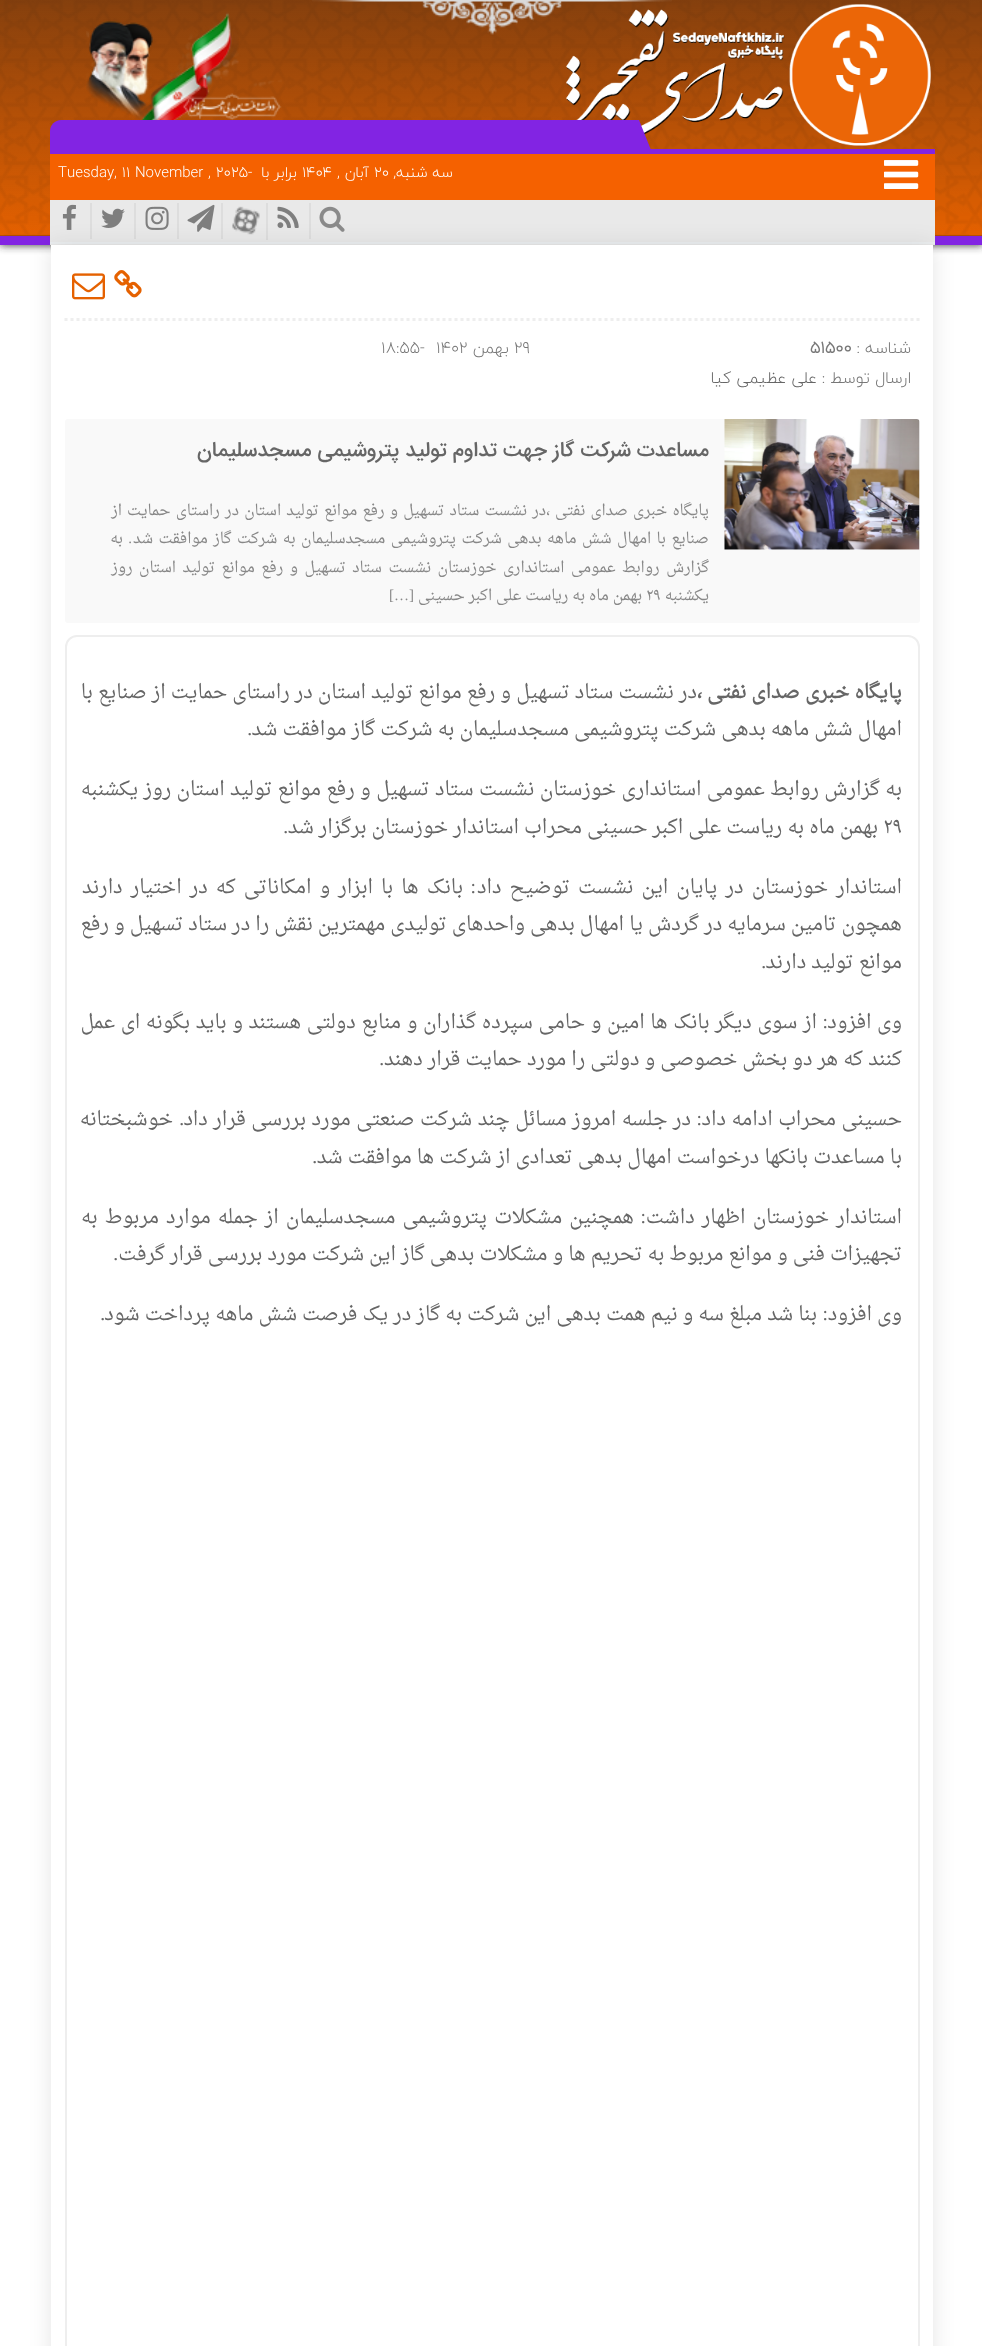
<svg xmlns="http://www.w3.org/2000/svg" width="982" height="2346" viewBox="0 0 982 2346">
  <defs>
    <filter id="blur1" x="-50%" y="-200%" width="200%" height="500%"><feGaussianBlur stdDeviation="4"/></filter>
    <filter id="blur2" x="-50%" y="-200%" width="200%" height="500%"><feGaussianBlur stdDeviation="11"/></filter>
  </defs>
  <rect width="100%" height="100%" fill="#ffffff"/>
  <rect x="0" y="0" width="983" height="245" fill="#333333" filter="url(#blur1)"/>
  <rect x="0" y="0" width="982" height="236" fill="#e56100"/>
  <image x="0" y="0" width="982" height="236" href="img1.png"/>
  <rect x="0" y="236" width="982" height="9" fill="#8224e3"/>
  <image x="312" y="0" width="360" height="35" href="img2.png"/>
  <image x="566" y="4" width="365" height="142" href="img3.png"/>
  <image x="86" y="12" width="196" height="108" href="img4.png"/>
  <rect x="50" y="149" width="885" height="5" fill="#8224e3"/>
  <path d="M61 120H624V149H50V131C50 125 55 120 61 120Z" fill="#8224e3"/>
  <path d="M651 150H594L609 120H639Z" fill="#8224e3"/>
  <rect x="50" y="154" width="885" height="46" fill="#f56100"/>
  <image x="884" y="160" width="35" height="29" href="img5.png"/>
  <text x="453" y="177" font-family="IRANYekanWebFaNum" font-size="15" font-weight="300" direction="rtl" fill="#ffffff">سه شنبه,</text>
  <text x="374" y="177" font-family="IRANYekanWebFaNum" font-size="15" font-weight="300" fill="#ffffff">۲۰</text>
  <text x="369" y="177" font-family="IRANYekanWebFaNum" font-size="15" font-weight="300" direction="rtl" fill="#ffffff">آبان ,</text>
  <text x="302" y="177" font-family="IRANYekanWebFaNum" font-size="15" font-weight="300" fill="#ffffff">۱۴۰۴</text>
  <text x="297" y="177" font-family="IRANYekanWebFaNum" font-size="15" font-weight="300" direction="rtl" fill="#ffffff">برابر با</text>
  <text x="58" y="177" font-family="IRANYekanWebFaNum" font-size="15" font-weight="300" fill="#ffffff">Tuesday, 11 November , 2025-</text>
  <rect x="50" y="200" width="885" height="45" fill="#e9e9e9"/>
  <rect x="309" y="203" width="2" height="36" fill="#dddddd"/>
  <image x="277" y="206" width="22" height="22" href="img6.png"/>
  <image x="232" y="206" width="28" height="29" href="img7.png"/>
  <rect x="266" y="203" width="2" height="37" fill="#dddddd"/>
  <rect x="221" y="203" width="2" height="36" fill="#dddddd"/>
  <image x="187" y="204" width="28" height="28" href="img8.png"/>
  <rect x="177" y="203" width="2" height="36" fill="#dddddd"/>
  <image x="145" y="206" width="24" height="24" href="img9.png"/>
  <rect x="134" y="203" width="2" height="36" fill="#dddddd"/>
  <image x="101" y="208" width="24" height="20" href="img10.png"/>
  <rect x="90" y="203" width="2" height="36" fill="#dddddd"/>
  <image x="62" y="204" width="14" height="26" href="img11.png"/>
  <rect x="50" y="242" width="885" height="2" fill="#eceff1"/>
  <image x="319" y="206" width="26" height="26" href="img12.png"/>
  <rect x="51" y="245" width="882" height="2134" fill="#000000" fill-opacity="0.1" filter="url(#blur2)"/>
  <rect x="51" y="245" width="882" height="2101" fill="#ffffff"/>
  <path d="M64.5 319.5H919.5" fill="none" stroke="#eeeeee" stroke-width="3" stroke-dasharray="3 3"/>
  <image x="114" y="270" width="28" height="28" href="img13.png"/>
  <image x="72" y="273" width="33" height="27" href="img14.png"/>
  <text x="911" y="353" font-family="IRANYekanWebFaNum" font-size="16.5" font-weight="300" direction="rtl" fill="#777777">شناسه :</text>
  <text x="810" y="353" font-family="IRANYekanWebFaNum" font-size="16.5" font-weight="bold" fill="#777777">51500</text>
  <text x="514" y="353" font-family="IRANYekanWebFaNum" font-size="16.5" font-weight="300" fill="#777777">29</text>
  <text x="509" y="353" font-family="IRANYekanWebFaNum" font-size="16.5" font-weight="300" direction="rtl" fill="#777777">بهمن</text>
  <text x="436" y="353" font-family="IRANYekanWebFaNum" font-size="16.5" font-weight="300" fill="#777777">1402</text>
  <text x="381" y="353" font-family="IRANYekanWebFaNum" font-size="16.5" font-weight="300" fill="#777777">18:55-</text>
  <text x="911" y="383" font-family="IRANYekanWebFaNum" font-size="16.5" font-weight="300" direction="rtl" fill="#777777">ارسال توسط :</text>
  <text x="817" y="383" font-family="IRANYekanWebFaNum" font-size="16.5" font-weight="300" direction="rtl" fill="#666666">علی عظیمی کیا</text>
  <rect x="65" y="419" width="855" height="204" rx="3" fill="#f9f9f9"/>
  <image x="724" y="419" width="196" height="131" href="img15.png"/>
  <text x="709" y="456" font-family="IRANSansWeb" font-size="21" font-weight="500" direction="rtl" fill="#666666">مساعدت شرکت گاز جهت تداوم تولید پتروشیمی مسجدسلیمان</text>
  <text x="709" y="515" word-spacing="1.3" font-family="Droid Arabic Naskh" font-size="15" direction="rtl" fill="#888888">پایگاه خبری صدای نفتی ،در نشست ستاد تسهیل و رفع موانع تولید استان در راستای حمایت از</text>
  <text x="709" y="543" word-spacing="1.6" font-family="Droid Arabic Naskh" font-size="15" direction="rtl" fill="#888888">صنایع با امهال شش ماهه بدهی شرکت پتروشیمی مسجدسلیمان به شرکت گاز موافقت شد</text>
  <text x="132" y="543" font-family="Liberation Serif" font-size="15" direction="rtl" fill="#888888">.</text>
  <text x="123" y="543" font-family="Droid Arabic Naskh" font-size="15" direction="rtl" fill="#888888">به</text>
  <text x="709" y="572" word-spacing="2.6" font-family="Droid Arabic Naskh" font-size="15" direction="rtl" fill="#888888">گزارش روابط عمومی استانداری خوزستان نشست ستاد تسهیل و رفع موانع تولید استان روز</text>
  <text x="709" y="600" font-family="Droid Arabic Naskh" font-size="15" direction="rtl" fill="#888888">یکشنبه</text>
  <text x="646" y="600" font-family="Droid Arabic Naskh" font-size="15" fill="#888888">۲۹</text>
  <text x="642" y="600" font-family="Droid Arabic Naskh" font-size="15" direction="rtl" fill="#888888">بهمن ماه به ریاست علی اکبر حسینی</text>
  <text x="414" y="600" font-family="Liberation Serif" font-size="15" direction="rtl" fill="#888888">[…]</text>
  <rect x="66" y="636" width="853" height="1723" rx="11" fill="none" stroke="#eeeeee" stroke-width="2"/>
  <text x="902" y="698" font-family="Droid Arabic Naskh" font-size="19.5" font-weight="bold" direction="rtl" fill="#666666">پایگاه خبری صدای نفتی ،</text>
  <text x="697" y="698" font-family="Droid Arabic Naskh" font-size="19.5" direction="rtl" fill="#666666">در نشست ستاد تسهیل و رفع موانع تولید استان در راستای حمایت از صنایع با</text>
  <text x="902" y="735" font-family="Droid Arabic Naskh" font-size="19.5" direction="rtl" fill="#666666">امهال شش ماهه بدهی شرکت پتروشیمی مسجدسلیمان به شرکت گاز موافقت شد</text>
  <text x="252" y="735" font-family="Liberation Serif" font-size="19.5" direction="rtl" fill="#666666">.</text>
  <text x="902" y="795" word-spacing="0.25" font-family="Droid Arabic Naskh" font-size="19.5" direction="rtl" fill="#666666">به گزارش روابط عمومی استانداری خوزستان نشست ستاد تسهیل و رفع موانع تولید استان روز یکشنبه</text>
  <text x="883" y="833" font-family="Droid Arabic Naskh" font-size="19.5" fill="#666666">۲۹</text>
  <text x="878" y="833" font-family="Droid Arabic Naskh" font-size="19.5" direction="rtl" fill="#666666">بهمن ماه به ریاست علی اکبر حسینی محراب استاندار خوزستان برگزار شد</text>
  <text x="288" y="833" font-family="Liberation Serif" font-size="19.5" direction="rtl" fill="#666666">.</text>
  <text x="902" y="893" word-spacing="3" font-family="Droid Arabic Naskh" font-size="19.5" direction="rtl" fill="#666666">استاندار خوزستان در پایان این نشست توضیح داد</text>
  <text x="476" y="893" font-family="Liberation Serif" font-size="19.5" direction="rtl" fill="#666666">:</text>
  <text x="463" y="893" word-spacing="3" font-family="Droid Arabic Naskh" font-size="19.5" direction="rtl" fill="#666666">بانک ها با ابزار و امکاناتی که در اختیار دارند</text>
  <text x="902" y="930" font-family="Droid Arabic Naskh" font-size="19.5" direction="rtl" fill="#666666">همچون تامین سرمایه در گردش یا امهال بدهی واحدهای تولیدی مهمترین نقش را در ستاد تسهیل و رفع</text>
  <text x="902" y="968" font-family="Droid Arabic Naskh" font-size="19.5" direction="rtl" fill="#666666">موانع تولید دارند</text>
  <text x="766" y="968" font-family="Liberation Serif" font-size="19.5" direction="rtl" fill="#666666">.</text>
  <text x="902" y="1028" word-spacing="0.5" font-family="Droid Arabic Naskh" font-size="19.5" direction="rtl" fill="#666666">وی افزود</text>
  <text x="828" y="1028" font-family="Liberation Serif" font-size="19.5" direction="rtl" fill="#666666">:</text>
  <text x="817" y="1028" word-spacing="0.5" font-family="Droid Arabic Naskh" font-size="19.5" direction="rtl" fill="#666666">از سوی دیگر بانک ها امین و حامی سپرده گذاران و منابع دولتی هستند و باید بگونه ای عمل</text>
  <text x="902" y="1065" font-family="Droid Arabic Naskh" font-size="19.5" direction="rtl" fill="#666666">کنند که هر دو بخش خصوصی و دولتی را مورد حمایت قرار دهند</text>
  <text x="384" y="1065" font-family="Liberation Serif" font-size="19.5" direction="rtl" fill="#666666">.</text>
  <text x="902" y="1125" word-spacing="0.4" font-family="Droid Arabic Naskh" font-size="19.5" direction="rtl" fill="#666666">حسینی محراب ادامه داد</text>
  <text x="702" y="1125" font-family="Liberation Serif" font-size="19.5" direction="rtl" fill="#666666">:</text>
  <text x="691" y="1125" word-spacing="0.4" font-family="Droid Arabic Naskh" font-size="19.5" direction="rtl" fill="#666666">در جلسه امروز مسائل چند شرکت صنعتی مورد بررسی قرار داد</text>
  <text x="184" y="1125" font-family="Liberation Serif" font-size="19.5" direction="rtl" fill="#666666">.</text>
  <text x="173" y="1125" font-family="Droid Arabic Naskh" font-size="19.5" direction="rtl" fill="#666666">خوشبختانه</text>
  <text x="902" y="1163" font-family="Droid Arabic Naskh" font-size="19.5" direction="rtl" fill="#666666">با مساعدت بانکها درخواست امهال بدهی تعدادی از شرکت ها موافقت شد</text>
  <text x="317" y="1163" font-family="Liberation Serif" font-size="19.5" direction="rtl" fill="#666666">.</text>
  <text x="902" y="1223" word-spacing="2" font-family="Droid Arabic Naskh" font-size="19.5" direction="rtl" fill="#666666">استاندار خوزستان اظهار داشت</text>
  <text x="646" y="1223" font-family="Liberation Serif" font-size="19.5" direction="rtl" fill="#666666">:</text>
  <text x="634" y="1223" word-spacing="2" font-family="Droid Arabic Naskh" font-size="19.5" direction="rtl" fill="#666666">همچنین مشکلات پتروشیمی مسجدسلیمان از جمله موارد مربوط به</text>
  <text x="902" y="1260" font-family="Droid Arabic Naskh" font-size="19.5" direction="rtl" fill="#666666">تجهیزات فنی و موانع مربوط به تحریم ها و مشکلات بدهی گاز این شرکت مورد بررسی قرار گرفت</text>
  <text x="118" y="1260" font-family="Liberation Serif" font-size="19.5" direction="rtl" fill="#666666">.</text>
  <text x="902" y="1320" font-family="Droid Arabic Naskh" font-size="19.5" direction="rtl" fill="#666666">وی افزود</text>
  <text x="828" y="1320" font-family="Liberation Serif" font-size="19.5" direction="rtl" fill="#666666">:</text>
  <text x="817" y="1320" font-family="Droid Arabic Naskh" font-size="19.5" direction="rtl" fill="#666666">بنا شد مبلغ سه و نیم همت بدهی این شرکت به گاز در یک فرصت شش ماهه پرداخت شود</text>
  <text x="105" y="1320" font-family="Liberation Serif" font-size="19.5" direction="rtl" fill="#666666">.</text>
</svg>
